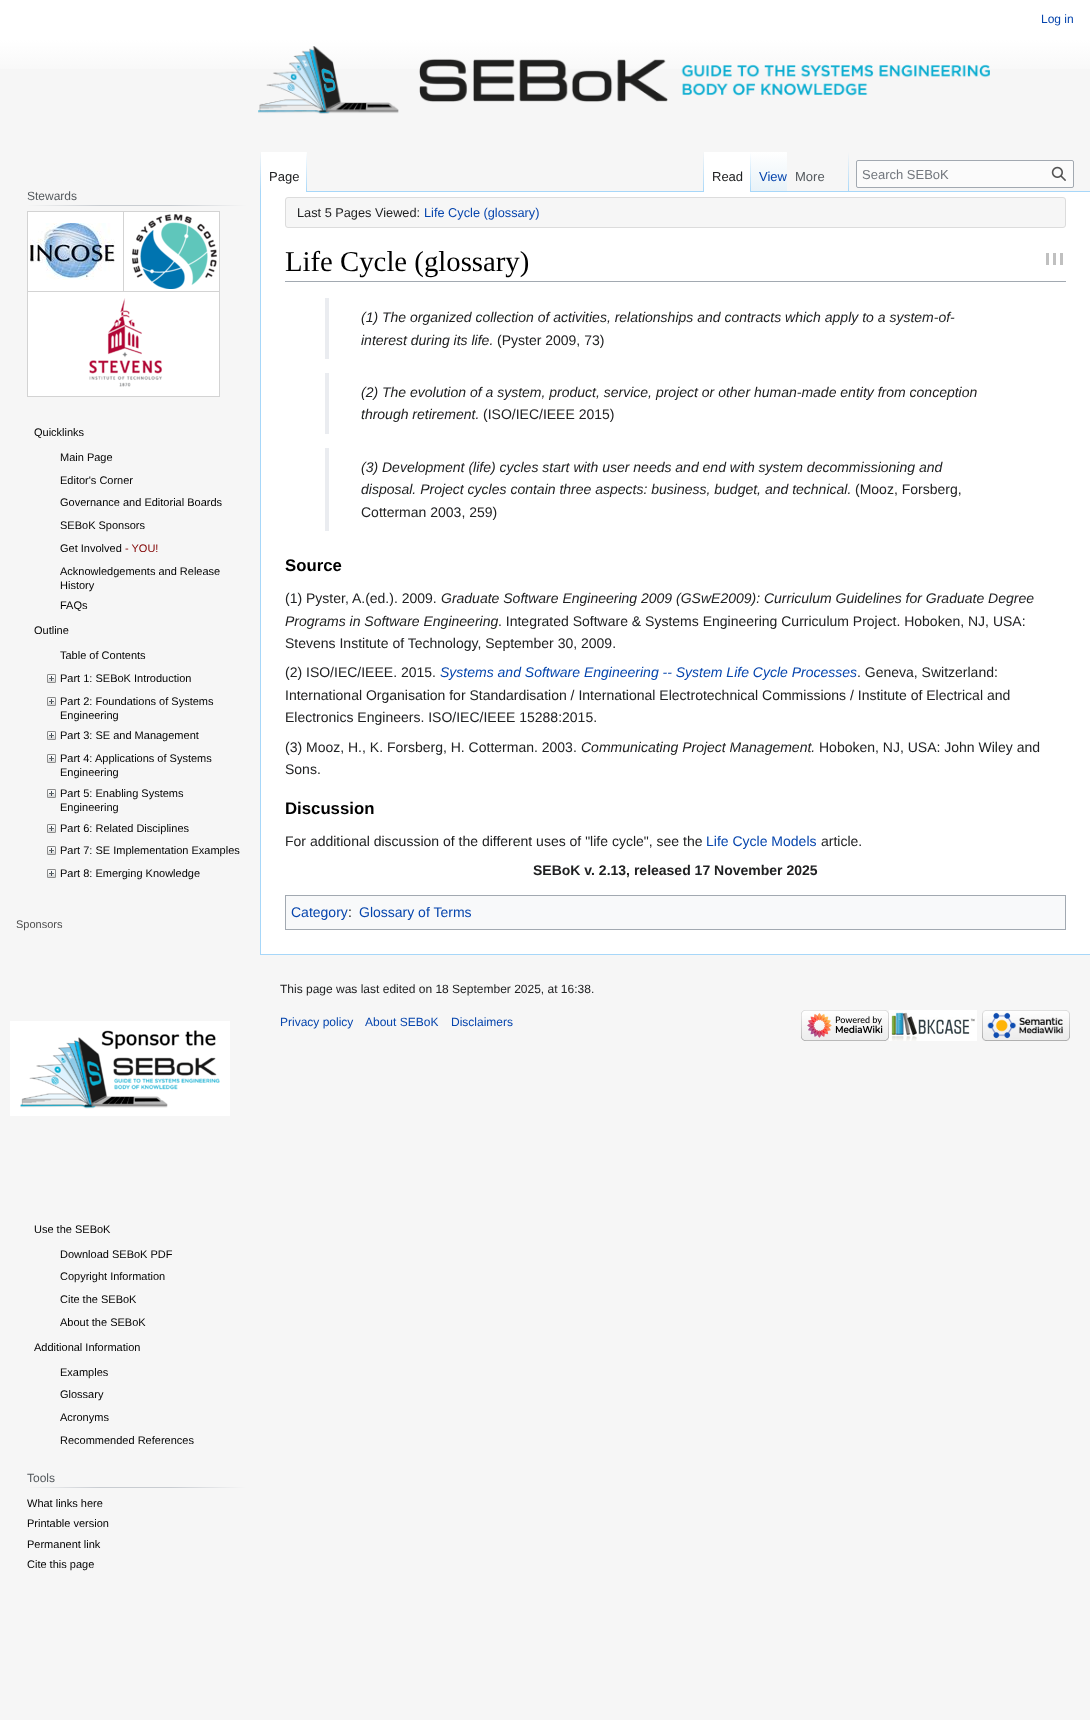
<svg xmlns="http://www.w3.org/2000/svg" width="1090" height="1720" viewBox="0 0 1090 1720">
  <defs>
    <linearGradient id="g1" gradientUnits="userSpaceOnUse" x1="545" y1="0" x2="545" y2="80"><stop offset="0.5" stop-color="#ffffff"/><stop offset="1" stop-color="#f6f6f6"/></linearGradient>
    <linearGradient id="g2" gradientUnits="userSpaceOnUse" x1="261" y1="152" x2="261" y2="192"><stop offset="0" stop-color="#a7d7f9" stop-opacity="0"/><stop offset="1" stop-color="#a7d7f9"/></linearGradient>
    <linearGradient id="g3" gradientUnits="userSpaceOnUse" x1="307" y1="152" x2="307" y2="192"><stop offset="0" stop-color="#ffffff"/><stop offset="1" stop-color="#a7d7f9"/></linearGradient>
    <linearGradient id="g4" gradientUnits="userSpaceOnUse" x1="704" y1="152" x2="704" y2="192"><stop offset="0" stop-color="#a7d7f9" stop-opacity="0"/><stop offset="1" stop-color="#a7d7f9"/></linearGradient>
    <linearGradient id="g5" gradientUnits="userSpaceOnUse" x1="751" y1="152" x2="751" y2="192"><stop offset="0" stop-color="#ffffff"/><stop offset="1" stop-color="#a7d7f9"/></linearGradient>
    <linearGradient id="g6" gradientUnits="userSpaceOnUse" x1="769" y1="192" x2="769" y2="152"><stop offset="0" stop-color="#77c1f6"/><stop offset="0.03" stop-color="#e8f2f8"/><stop offset="1" stop-color="#ffffff"/></linearGradient>
    <linearGradient id="g7" gradientUnits="userSpaceOnUse" x1="849" y1="152" x2="849" y2="192"><stop offset="0" stop-color="#a7d7f9" stop-opacity="0"/><stop offset="1" stop-color="#a7d7f9"/></linearGradient>
    <linearGradient id="g8" gradientUnits="userSpaceOnUse" x1="27" y1="206" x2="246" y2="206"><stop offset="0" stop-color="#f6f6f6"/><stop offset="0.33" stop-color="#c8ccd1"/><stop offset="0.66" stop-color="#c8ccd1"/><stop offset="1" stop-color="#f6f6f6"/></linearGradient>
    <linearGradient id="g9" gradientUnits="userSpaceOnUse" x1="27" y1="1488" x2="246" y2="1488"><stop offset="0" stop-color="#f6f6f6"/><stop offset="0.33" stop-color="#c8ccd1"/><stop offset="0.66" stop-color="#c8ccd1"/><stop offset="1" stop-color="#f6f6f6"/></linearGradient>
  </defs>
  <rect width="100%" height="100%" fill="#f6f6f6"/>
  <rect x="0" y="0" width="1090" height="69" fill="url(#g1)"/>
  <text x="1041" y="23" font-family="Liberation Sans" font-size="12" fill="#0645ad">Log in</text>
  <rect x="260" y="954" width="830" height="1" fill="#a7d7f9"/>
  <rect x="260" y="191" width="1" height="764" fill="#a7d7f9"/>
  <rect x="260" y="152" width="1" height="40" fill="url(#g2)"/>
  <rect x="261" y="152" width="45" height="40" fill="#ffffff"/>
  <rect x="306" y="152" width="1" height="40" fill="url(#g3)"/>
  <text x="269" y="181" font-family="Liberation Sans" font-size="13" fill="#202122">Page</text>
  <rect x="307" y="191" width="783" height="1" fill="#a7d7f9"/>
  <rect x="703" y="152" width="1" height="40" fill="url(#g4)"/>
  <rect x="704" y="152" width="46" height="40" fill="#ffffff"/>
  <rect x="750" y="152" width="1" height="40" fill="url(#g5)"/>
  <text x="712" y="181" font-family="Liberation Sans" font-size="13" fill="#202122">Read</text>
  <rect x="751" y="152" width="36" height="39" fill="url(#g6)"/>
  <text x="759" y="181" font-family="Liberation Sans" font-size="13" fill="#0645ad">View</text>
  <rect x="848" y="152" width="1" height="40" fill="url(#g7)"/>
  <text x="795" y="181" font-family="Liberation Sans" font-size="13" fill="#54595d">More</text>
  <rect x="856.5" y="160.5" width="217" height="27" rx="1.5" fill="#fbfbfb" stroke="#a2a9b1"/>
  <text x="862" y="179" font-family="Liberation Sans" font-size="13" fill="#72777d">Search SEBoK</text>
  <image x="1051" y="166" width="15" height="15" href="img1.png"/>
  <image x="258" y="46" width="732" height="68" href="img2.png"/>
  <rect x="27" y="205" width="219" height="1" fill="url(#g8)"/>
  <text x="27" y="200" font-family="Liberation Sans" font-size="12" fill="#54595d">Stewards</text>
  <rect x="27" y="211" width="193" height="1" fill="#d3d3d3"/>
  <rect x="219" y="211" width="1" height="186" fill="#d3d3d3"/>
  <rect x="27" y="396" width="193" height="1" fill="#d3d3d3"/>
  <rect x="27" y="211" width="1" height="186" fill="#d3d3d3"/>
  <rect x="28" y="212" width="95" height="79" fill="#ffffff"/>
  <image x="30" y="223" width="85" height="57" href="img3.png"/>
  <rect x="124" y="212" width="95" height="79" fill="#ffffff"/>
  <rect x="27" y="291" width="193" height="1" fill="#d3d3d3"/>
  <rect x="123" y="211" width="1" height="81" fill="#d3d3d3"/>
  <image x="132" y="214" width="85" height="75" href="img4.png"/>
  <rect x="28" y="292" width="191" height="104" fill="#ffffff"/>
  <image x="89" y="298" width="74" height="89" href="img5.png"/>
  <text x="34" y="436" font-family="Liberation Sans" font-size="11" fill="#000000">Quicklinks</text>
  <text x="60" y="461" font-family="Liberation Sans" font-size="11" fill="#000000">Main Page</text>
  <text x="60" y="484" font-family="Liberation Sans" font-size="11" fill="#000000">Editor's Corner</text>
  <text x="60" y="506" font-family="Liberation Sans" font-size="11" fill="#000000">Governance and Editorial Boards</text>
  <text x="60" y="529" font-family="Liberation Sans" font-size="11" fill="#000000">SEBoK Sponsors</text>
  <text x="60" y="552" font-family="Liberation Sans" font-size="11" fill="#000000">Get Involved</text>
  <text x="125" y="552" font-family="Liberation Sans" font-size="11" fill="#800000">- YOU!</text>
  <text x="60" y="575" font-family="Liberation Sans" font-size="11" fill="#000000">Acknowledgements and Release</text>
  <text x="60" y="589" font-family="Liberation Sans" font-size="11" fill="#000000">History</text>
  <text x="60" y="609" font-family="Liberation Sans" font-size="11" fill="#000000">FAQs</text>
  <text x="34" y="634" font-family="Liberation Sans" font-size="11" fill="#000000">Outline</text>
  <text x="60" y="659" font-family="Liberation Sans" font-size="11" fill="#000000">Table of Contents</text>
  <image x="47" y="674" width="9" height="9" href="img6.png"/>
  <text x="60" y="682" font-family="Liberation Sans" font-size="11" fill="#000000">Part 1: SEBoK Introduction</text>
  <image x="47" y="697" width="9" height="9" href="img6.png"/>
  <text x="60" y="705" font-family="Liberation Sans" font-size="11" fill="#000000">Part 2: Foundations of Systems</text>
  <text x="60" y="719" font-family="Liberation Sans" font-size="11" fill="#000000">Engineering</text>
  <image x="47" y="731" width="9" height="9" href="img6.png"/>
  <text x="60" y="739" font-family="Liberation Sans" font-size="11" fill="#000000">Part 3: SE and Management</text>
  <image x="47" y="754" width="9" height="9" href="img6.png"/>
  <text x="60" y="762" font-family="Liberation Sans" font-size="11" fill="#000000">Part 4:</text>
  <text x="95" y="762" font-family="Liberation Sans" font-size="11" fill="#000000">Applications of Systems</text>
  <text x="60" y="776" font-family="Liberation Sans" font-size="11" fill="#000000">Engineering</text>
  <image x="47" y="789" width="9" height="9" href="img6.png"/>
  <text x="60" y="797" font-family="Liberation Sans" font-size="11" fill="#000000">Part 5: Enabling Systems</text>
  <text x="60" y="811" font-family="Liberation Sans" font-size="11" fill="#000000">Engineering</text>
  <image x="47" y="824" width="9" height="9" href="img6.png"/>
  <text x="60" y="832" font-family="Liberation Sans" font-size="11" fill="#000000">Part 6: Related Disciplines</text>
  <image x="47" y="846" width="9" height="9" href="img6.png"/>
  <text x="60" y="854" font-family="Liberation Sans" font-size="11" fill="#000000">Part 7: SE Implementation Examples</text>
  <image x="47" y="869" width="9" height="9" href="img6.png"/>
  <text x="60" y="877" font-family="Liberation Sans" font-size="11" fill="#000000">Part 8: Emerging Knowledge</text>
  <text x="16" y="928" font-family="Liberation Sans" font-size="11" fill="#4d4d4d">Sponsors</text>
  <image x="10" y="1021" width="220" height="95" href="img7.png"/>
  <text x="34" y="1233" font-family="Liberation Sans" font-size="11" fill="#000000">Use the SEBoK</text>
  <text x="60" y="1258" font-family="Liberation Sans" font-size="11" fill="#000000">Download SEBoK PDF</text>
  <text x="60" y="1280" font-family="Liberation Sans" font-size="11" fill="#000000">Copyright Information</text>
  <text x="60" y="1303" font-family="Liberation Sans" font-size="11" fill="#000000">Cite the SEBoK</text>
  <text x="60" y="1326" font-family="Liberation Sans" font-size="11" fill="#000000">About the SEBoK</text>
  <text x="34" y="1351" font-family="Liberation Sans" font-size="11" fill="#000000">Additional Information</text>
  <text x="60" y="1376" font-family="Liberation Sans" font-size="11" fill="#000000">Examples</text>
  <text x="60" y="1398" font-family="Liberation Sans" font-size="11" fill="#000000">Glossary</text>
  <text x="60" y="1421" font-family="Liberation Sans" font-size="11" fill="#000000">Acronyms</text>
  <text x="60" y="1444" font-family="Liberation Sans" font-size="11" fill="#000000">Recommended References</text>
  <rect x="27" y="1487" width="219" height="1" fill="url(#g9)"/>
  <text x="27" y="1482" font-family="Liberation Sans" font-size="12" fill="#54595d">Tools</text>
  <text x="27" y="1507" font-family="Liberation Sans" font-size="11" fill="#000000">What links here</text>
  <text x="27" y="1527" font-family="Liberation Sans" font-size="11" fill="#000000">Printable version</text>
  <text x="27" y="1548" font-family="Liberation Sans" font-size="11" fill="#000000">Permanent link</text>
  <text x="27" y="1568" font-family="Liberation Sans" font-size="11" fill="#000000">Cite this page</text>
  <rect x="261" y="192" width="829" height="762" fill="#ffffff"/>
  <rect x="285.5" y="197.5" width="780" height="30" rx="2.5" fill="#f6f6f6" stroke="#dcdcdc"/>
  <text x="297" y="217" font-family="Liberation Sans" font-size="12.75" fill="#202122">Last 5 Pages Viewed:</text>
  <text x="424" y="217" font-family="Liberation Sans" font-size="12.75" fill="#0645ad">Life Cycle (glossary)</text>
  <rect x="285" y="281" width="781" height="1" fill="#a2a9b1"/>
  <text x="285" y="271" font-family="Liberation Serif" font-size="28.75" fill="#000000">Life Cycle (glossary)</text>
  <rect x="1053" y="253" width="3" height="12" fill="#c0c0c0"/>
  <rect x="1046" y="253" width="3" height="12" fill="#c0c0c0"/>
  <rect x="1060" y="253" width="3" height="12" fill="#c0c0c0"/>
  <rect x="325" y="298" width="4" height="61" fill="#eaecf0"/>
  <text x="361" y="322" font-family="Liberation Sans" font-size="14" font-style="italic" fill="#202122">(1) The organized collection of activities, relationships and contracts which apply to a system-of-</text>
  <text x="361" y="345" font-family="Liberation Sans" font-size="14" font-style="italic" fill="#202122">interest during its life.</text>
  <text x="497" y="345" font-family="Liberation Sans" font-size="14" fill="#202122">(Pyster 2009, 73)</text>
  <rect x="325" y="373" width="4" height="61" fill="#eaecf0"/>
  <text x="361" y="397" font-family="Liberation Sans" font-size="14" font-style="italic" fill="#202122">(2) The evolution of a system, product, service, project or other human-made entity from conception</text>
  <text x="361" y="419" font-family="Liberation Sans" font-size="14" font-style="italic" fill="#202122">through retirement.</text>
  <text x="483" y="419" font-family="Liberation Sans" font-size="14" fill="#202122">(ISO/IEC/IEEE 2015)</text>
  <rect x="325" y="448" width="4" height="83" fill="#eaecf0"/>
  <text x="361" y="472" font-family="Liberation Sans" font-size="14" font-style="italic" fill="#202122">(3) Development (life) cycles start with user needs and end with system decommissioning and</text>
  <text x="361" y="494" font-family="Liberation Sans" font-size="14" font-style="italic" fill="#202122">disposal. Project cycles contain three aspects: business, budget, and technical.</text>
  <text x="855" y="494" font-family="Liberation Sans" font-size="14" fill="#202122">(Mooz, Forsberg,</text>
  <text x="361" y="517" font-family="Liberation Sans" font-size="14" fill="#202122">Cotterman 2003, 259)</text>
  <text x="285" y="571" font-family="Liberation Sans" font-size="16.75" font-weight="bold" fill="#000000">Source</text>
  <text x="285" y="603" font-family="Liberation Sans" font-size="14" fill="#202122">(1) Pyster, A.(ed.). 2009.</text>
  <text x="441" y="603" font-family="Liberation Sans" font-size="14" font-style="italic" fill="#202122">Graduate Software Engineering 2009 (GSwE2009): Curriculum Guidelines for Graduate Degree</text>
  <text x="285" y="626" font-family="Liberation Sans" font-size="14" font-style="italic" fill="#202122">Programs in Software Engineering</text>
  <text x="498" y="626" font-family="Liberation Sans" font-size="14" fill="#202122">. Integrated Software &amp; Systems Engineering Curriculum Project. Hoboken, NJ, USA:</text>
  <text x="285" y="648" font-family="Liberation Sans" font-size="14" fill="#202122">Stevens Institute of Technology, September 30, 2009.</text>
  <text x="285" y="677" font-family="Liberation Sans" font-size="14" fill="#202122">(2) ISO/IEC/IEEE. 2015.</text>
  <text x="440" y="677" font-family="Liberation Sans" font-size="14" font-style="italic" fill="#0645ad">Systems and Software Engineering -- System Life Cycle Processes</text>
  <text x="857" y="677" font-family="Liberation Sans" font-size="14" fill="#202122">. Geneva, Switzerland:</text>
  <text x="285" y="700" font-family="Liberation Sans" font-size="14" fill="#202122">International Organisation for Standardisation / International Electrotechnical Commissions / Institute of Electrical and</text>
  <text x="285" y="722" font-family="Liberation Sans" font-size="14" fill="#202122">Electronics Engineers. ISO/IEC/IEEE 15288:2015.</text>
  <text x="285" y="752" font-family="Liberation Sans" font-size="14" fill="#202122">(3) Mooz, H., K. Forsberg, H. Cotterman. 2003.</text>
  <text x="581" y="752" font-family="Liberation Sans" font-size="14" font-style="italic" fill="#202122">Communicating Project Management.</text>
  <text x="819" y="752" font-family="Liberation Sans" font-size="14" fill="#202122">Hoboken, NJ, USA: John Wiley and</text>
  <text x="285" y="774" font-family="Liberation Sans" font-size="14" fill="#202122">Sons.</text>
  <text x="285" y="814" font-family="Liberation Sans" font-size="16.75" font-weight="bold" fill="#000000">Discussion</text>
  <text x="285" y="846" font-family="Liberation Sans" font-size="14" fill="#202122">For additional discussion of the different uses of "life cycle", see the</text>
  <text x="706" y="846" font-family="Liberation Sans" font-size="14" fill="#0645ad">Life Cycle Models</text>
  <text x="821" y="846" font-family="Liberation Sans" font-size="14" fill="#202122">article.</text>
  <text x="533" y="875" font-family="Liberation Sans" font-size="14" font-weight="bold" fill="#202122">SEBoK v. 2.13, released 17 November 2025</text>
  <rect x="285.5" y="895.5" width="780" height="34" fill="#f8f9fa" stroke="#a2a9b1"/>
  <text x="291" y="917" font-family="Liberation Sans" font-size="14" fill="#0645ad">Category</text>
  <text x="348" y="917" font-family="Liberation Sans" font-size="14" fill="#202122">:</text>
  <text x="359" y="917" font-family="Liberation Sans" font-size="14" fill="#0645ad">Glossary of Terms</text>
  <text x="280" y="993" font-family="Liberation Sans" font-size="12" fill="#202122">This page was last edited on 18 September 2025, at 16:38.</text>
  <text x="280" y="1026" font-family="Liberation Sans" font-size="12" fill="#0645ad">Privacy policy</text>
  <text x="365" y="1026" font-family="Liberation Sans" font-size="12" fill="#0645ad">About SEBoK</text>
  <text x="451" y="1026" font-family="Liberation Sans" font-size="12" fill="#0645ad">Disclaimers</text>
  <image x="801" y="1010" width="88" height="31" href="img8.png"/>
  <image x="889" y="1010" width="88" height="31" href="img9.png"/>
  <image x="982" y="1010" width="88" height="31" href="img10.png"/>
</svg>
